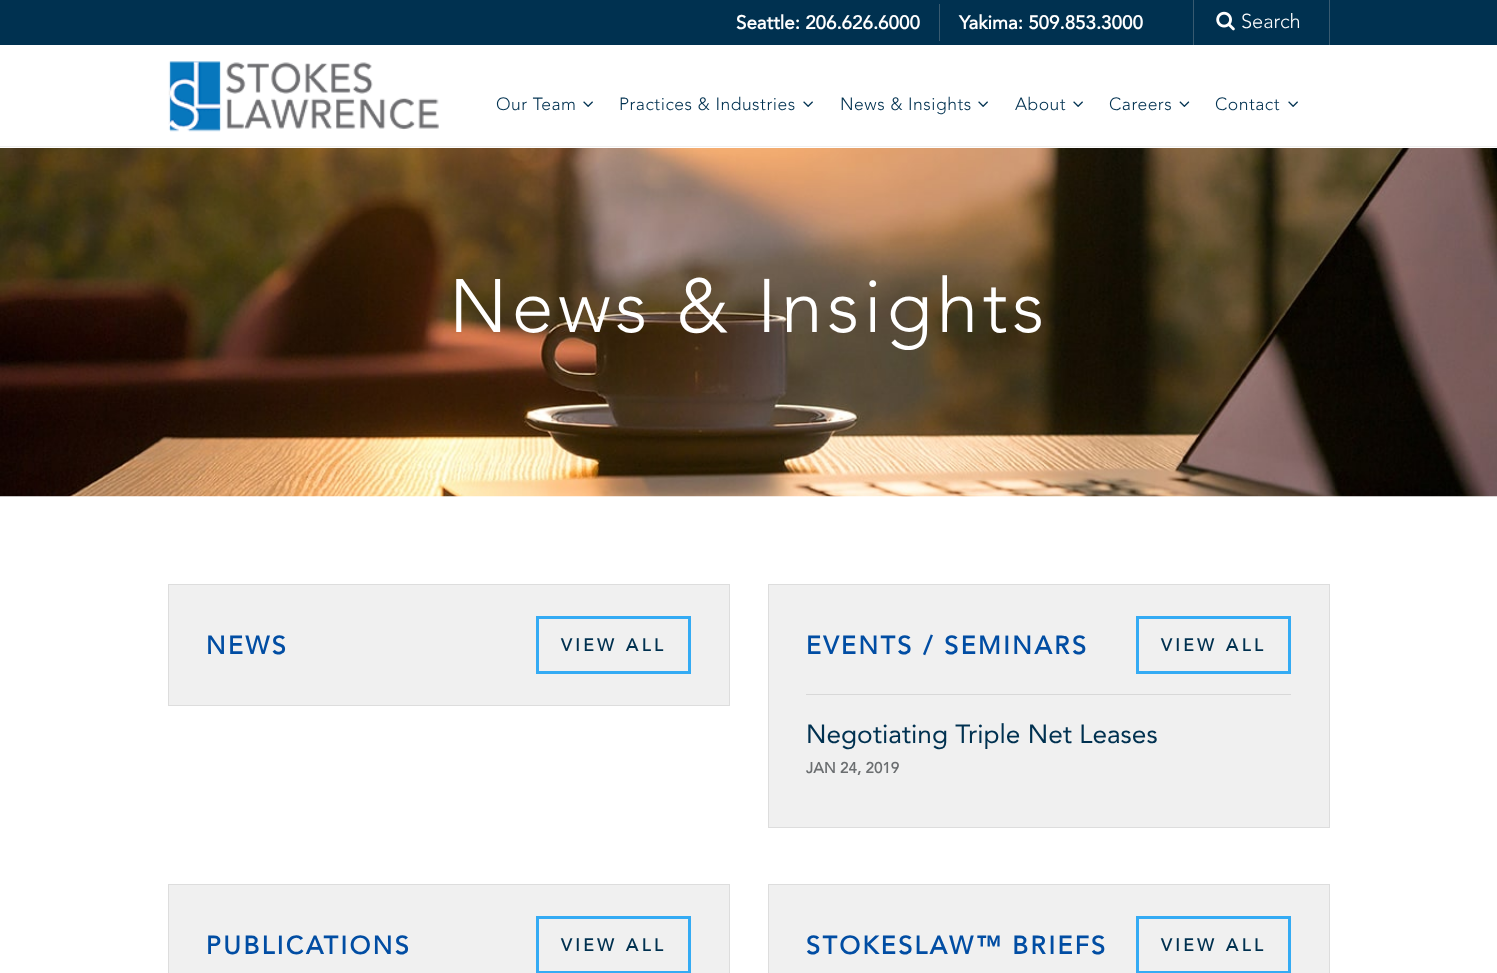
<svg xmlns="http://www.w3.org/2000/svg" width="1497" height="973" viewBox="0 0 1497 973">
  <rect width="100%" height="100%" fill="#ffffff"/>
  <rect x="0" y="146" width="1497" height="1" fill="#f0f0f0"/>
  <rect x="0" y="0" width="1497" height="45" fill="#003150"/>
  <text x="736" y="29" font-family="Avenir" font-size="18.75" font-weight="bold" fill="#ffffff">Seattle: 206.626.6000</text>
  <rect x="939" y="4" width="1" height="37" fill="#385a70"/>
  <text x="959" y="29" font-family="Avenir" font-size="18.75" font-weight="bold" fill="#ffffff">Yakima: 509.853.3000</text>
  <rect x="1329" y="0" width="1" height="45" fill="#385a70"/>
  <rect x="1193" y="0" width="1" height="45" fill="#385a70"/>
  <image x="1216" y="11" width="19" height="20" href="img1.png"/>
  <text x="1241" y="28" font-family="Avenir" font-size="20" font-weight="300" fill="#ffffff">Search</text>
  <image x="168" y="61" width="271" height="71" href="img2.png"/>
  <text x="496" y="110" font-family="Avenir" font-size="17.5" font-weight="300" letter-spacing="0.5" fill="#003150">Our Team</text>
  <image x="583" y="101" width="10" height="6" href="img3.png"/>
  <text x="619" y="110" font-family="Avenir" font-size="17.5" font-weight="300" letter-spacing="0.5" fill="#003150">Practices &amp; Industries</text>
  <image x="803" y="101" width="10" height="6" href="img3.png"/>
  <text x="840" y="110" font-family="Avenir" font-size="17.5" font-weight="300" letter-spacing="0.5" fill="#003150">News &amp; Insights</text>
  <image x="978" y="101" width="10" height="6" href="img3.png"/>
  <text x="1015" y="110" font-family="Avenir" font-size="17.5" font-weight="300" letter-spacing="0.5" fill="#003150">About</text>
  <image x="1073" y="101" width="10" height="6" href="img3.png"/>
  <text x="1109" y="110" font-family="Avenir" font-size="17.5" font-weight="300" letter-spacing="0.5" fill="#003150">Careers</text>
  <image x="1179" y="101" width="11" height="6" href="img4.png"/>
  <text x="1215" y="110" font-family="Avenir" font-size="17.5" font-weight="300" letter-spacing="0.5" fill="#003150">Contact</text>
  <image x="1288" y="101" width="10" height="6" href="img3.png"/>
  <image x="0" y="148" width="1497" height="349" href="img5.png"/>
  <text x="449" y="332" font-family="Avenir" font-size="75" font-weight="300" letter-spacing="4.5" fill="#ffffff">News &amp; Insights</text>
  <rect x="168.5" y="584.5" width="561" height="121" fill="#f0f0f0" stroke="#dddddd"/>
  <text x="206" y="654" font-family="Avenir" font-size="25" font-weight="bold" letter-spacing="2.5" fill="#014da3">NEWS</text>
  <rect x="537.5" y="617.5" width="152" height="55" fill="none" stroke="#34abf4" stroke-width="3"/>
  <text x="561" y="651" font-family="Avenir" font-size="17.5" font-weight="bold" letter-spacing="3.5" fill="#003150">VIEW ALL</text>
  <rect x="768.5" y="584.5" width="561" height="243" fill="#f0f0f0" stroke="#dddddd"/>
  <text x="806" y="654" font-family="Avenir" font-size="25" font-weight="bold" letter-spacing="2.5" fill="#014da3">EVENTS / SEMINARS</text>
  <rect x="1137.5" y="617.5" width="152" height="55" fill="none" stroke="#34abf4" stroke-width="3"/>
  <text x="1161" y="651" font-family="Avenir" font-size="17.5" font-weight="bold" letter-spacing="3.5" fill="#003150">VIEW ALL</text>
  <rect x="806" y="694" width="485" height="1" fill="#d8d8d8"/>
  <text x="806" y="743" font-family="Avenir" font-size="26.25" fill="#003150">Negotiating Triple Net Leases</text>
  <text x="806" y="773" font-family="Avenir" font-size="15" font-weight="bold" letter-spacing="0.1" fill="#6b6e70">JAN 24, 2019</text>
  <rect x="168.5" y="884.5" width="561" height="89" fill="#f0f0f0" stroke="#dddddd"/>
  <text x="206" y="954" font-family="Avenir" font-size="25" font-weight="bold" letter-spacing="2.5" fill="#014da3">PUBLICATIONS</text>
  <rect x="537.5" y="917.5" width="152" height="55" fill="none" stroke="#34abf4" stroke-width="3"/>
  <text x="561" y="951" font-family="Avenir" font-size="17.5" font-weight="bold" letter-spacing="3.5" fill="#003150">VIEW ALL</text>
  <rect x="768.5" y="884.5" width="561" height="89" fill="#f0f0f0" stroke="#dddddd"/>
  <text x="806" y="954" font-family="Avenir" font-size="25" font-weight="bold" letter-spacing="2.5" fill="#014da3">STOKESLAW™ BRIEFS</text>
  <rect x="1137.5" y="917.5" width="152" height="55" fill="none" stroke="#34abf4" stroke-width="3"/>
  <text x="1161" y="951" font-family="Avenir" font-size="17.5" font-weight="bold" letter-spacing="3.5" fill="#003150">VIEW ALL</text>
</svg>
